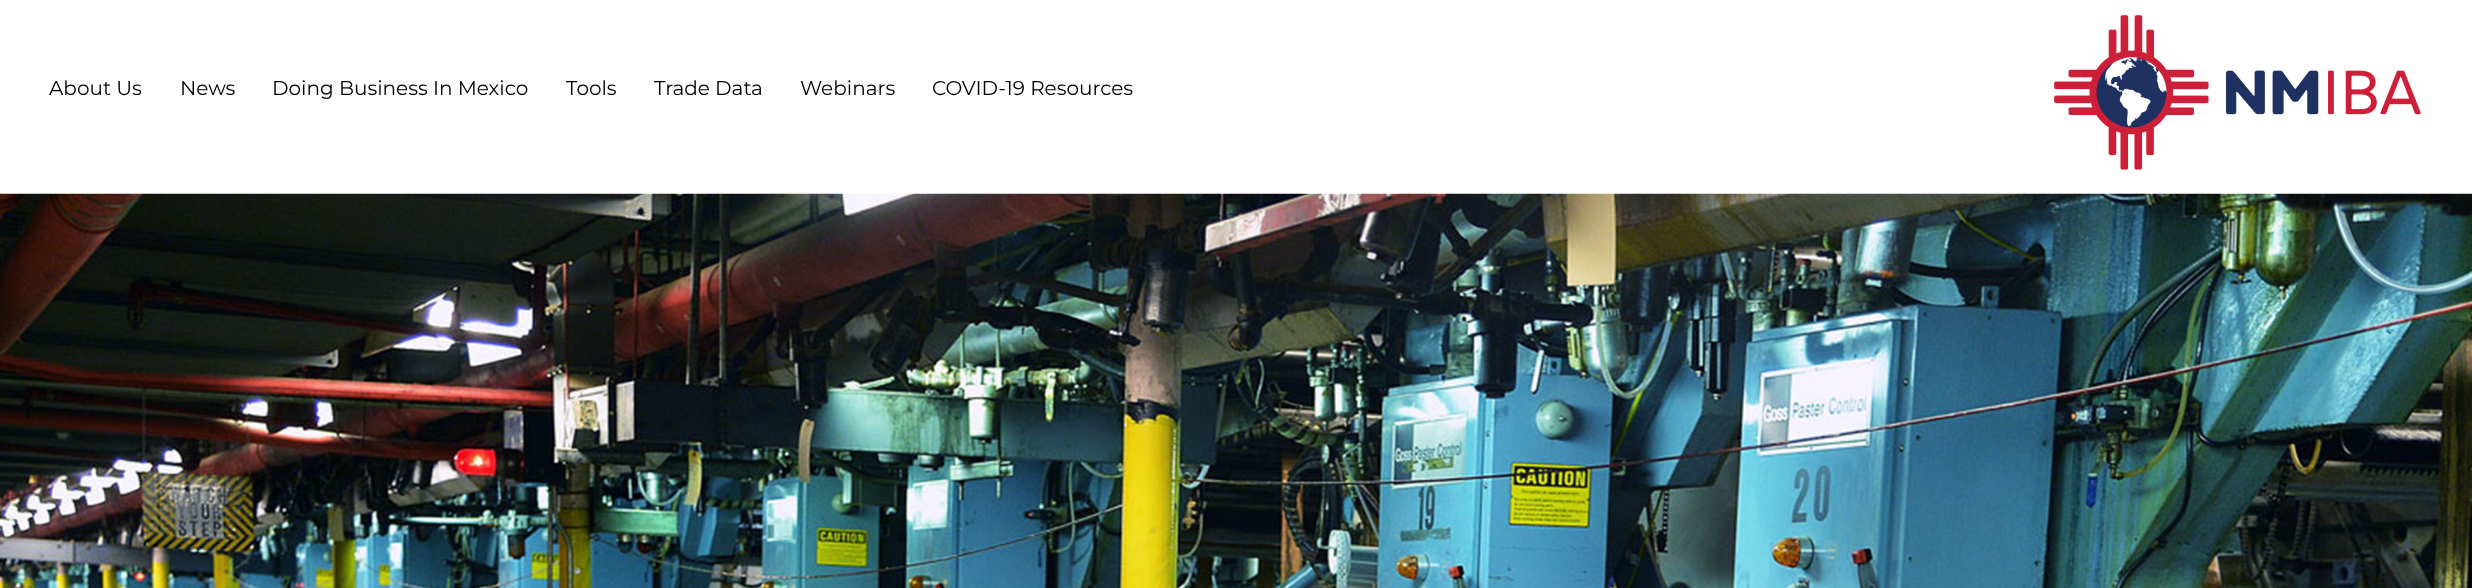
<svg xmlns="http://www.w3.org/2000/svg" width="2472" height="588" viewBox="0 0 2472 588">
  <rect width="100%" height="100%" fill="#ffffff"/>
  <text x="49" y="95" font-family="Montserrat" font-size="20" font-weight="100" fill="#000000">About Us</text>
  <text x="180" y="95" font-family="Montserrat" font-size="20" font-weight="100" fill="#000000">News</text>
  <text x="272" y="95" font-family="Montserrat" font-size="20" font-weight="100" fill="#000000">Doing Business In Mexico</text>
  <text x="566" y="95" font-family="Montserrat" font-size="20" font-weight="100" fill="#000000">Tools</text>
  <text x="654" y="95" font-family="Montserrat" font-size="20" font-weight="100" fill="#000000">Trade Data</text>
  <text x="800" y="95" font-family="Montserrat" font-size="20" font-weight="100" fill="#000000">Webinars</text>
  <text x="932" y="95" font-family="Montserrat" font-size="20" font-weight="100" fill="#000000">COVID-19 Resources</text>
  <image x="2054" y="15" width="367" height="155" href="img1.png"/>
  <image x="0" y="193" width="2472" height="395" href="img2.png"/>
</svg>
